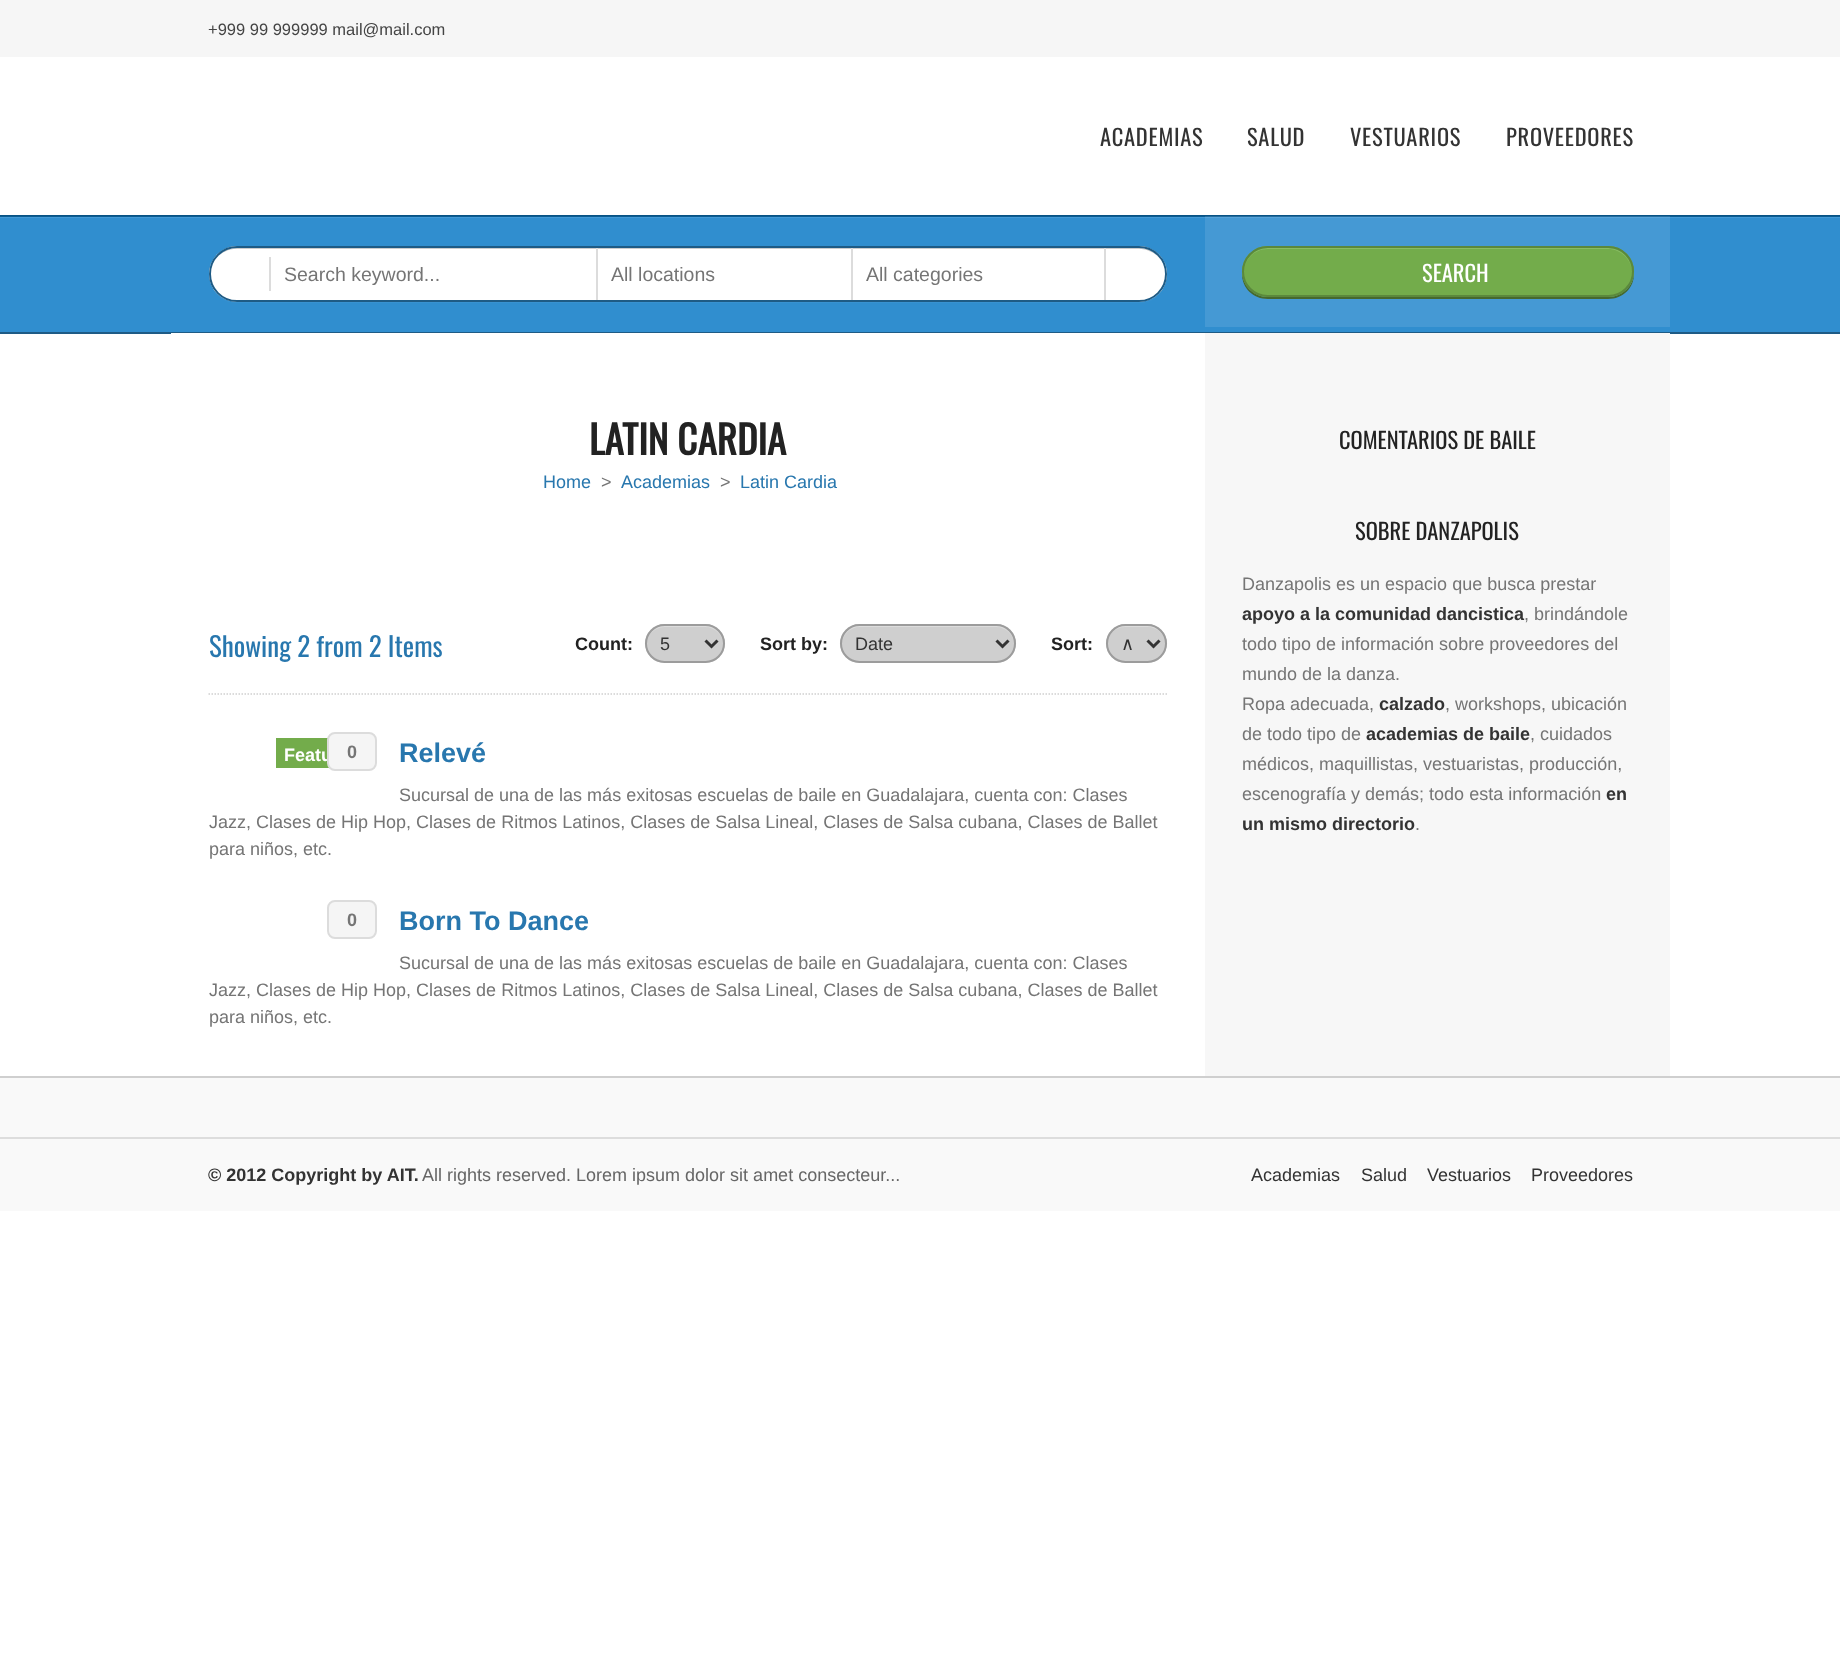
<svg xmlns="http://www.w3.org/2000/svg" width="1840" height="1654" viewBox="0 0 1840 1654">
  <rect width="100%" height="100%" fill="#ffffff"/>
  <rect x="0" y="0" width="1840" height="57" fill="#f6f6f6"/>
  <text x="208" y="35" font-family="Liberation Sans" font-size="16.5" fill="#444444">+999 99 999999 mail@mail.com</text>
  <rect x="0" y="215" width="1840" height="2" fill="#0a5c93"/>
  <path d="M0 214V216H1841V59H1840V214Z" fill="#000000" fill-opacity="0.1"/>
  <rect x="0" y="214" width="1840" height="1" fill="#ffffff"/>
  <text x="1100" y="146" font-family="Oswald" font-size="22.5" letter-spacing="0.75" fill="#333333">ACADEMIAS</text>
  <text x="1247" y="146" font-family="Oswald" font-size="22.5" letter-spacing="0.75" fill="#333333">SALUD</text>
  <text x="1350" y="146" font-family="Oswald" font-size="22.5" letter-spacing="0.75" fill="#333333">VESTUARIOS</text>
  <text x="1506" y="146" font-family="Oswald" font-size="22.5" letter-spacing="0.75" fill="#333333">PROVEEDORES</text>
  <rect x="0" y="218" width="1840" height="114" fill="#308ecf"/>
  <rect x="1205" y="218" width="465" height="109" fill="#4599d4"/>
  <rect x="0" y="217" width="1840" height="1" fill="#4599d4"/>
  <rect x="1205" y="217" width="465" height="1" fill="#58a3d8"/>
  <rect x="1205" y="216" width="465" height="1" fill="#236c9e"/>
  <rect x="0" y="332" width="1840" height="2" fill="#1e5b85"/>
  <path d="M212 288C217 297 226 303 236 303H1140C1152 303 1162 295 1165 284C1161 294 1151 302 1139 302H236C226 302 217 296 212 288Z" fill="#3892d1"/>
  <rect x="209" y="246" width="958" height="56" rx="28" fill="#ffffff"/>
  <path d="M236 249H1139C1154 249 1166 261 1166 275C1166 260 1154 248 1140 248H236C222 248 210 260 210 275C210 261 222 249 236 249Z" fill="#cccccc"/>
  <rect x="210" y="247" width="956" height="54" rx="27" fill="none" stroke="#1e5b85" stroke-width="2"/>
  <rect x="269" y="257" width="2" height="34" fill="#dcdcdc"/>
  <text x="284" y="281" font-family="Liberation Sans" font-size="19.5" fill="#757575">Search keyword...</text>
  <rect x="596" y="248" width="2" height="52" fill="#dcdcdc"/>
  <text x="611" y="281" font-family="Liberation Sans" font-size="19.5" fill="#757575">All locations</text>
  <rect x="851" y="248" width="2" height="52" fill="#dcdcdc"/>
  <text x="866" y="281" font-family="Liberation Sans" font-size="19.5" fill="#757575">All categories</text>
  <rect x="1104" y="248" width="2" height="52" fill="#dcdcdc"/>
  <path d="M1242 272V274C1242 288 1253 299 1268 299H1608C1623 299 1634 288 1634 274C1634 271 1634 269 1633 266L1634 272C1634 286 1622 297 1608 297H1268C1254 297 1243 286 1242 272Z" fill="#46692e"/>
  <rect x="1242" y="246" width="392" height="51" rx="25.5" fill="#73ac4b"/>
  <path d="M1268 249H1608C1621 249 1632 260 1632 273C1632 259 1621 248 1608 248H1268C1255 248 1244 259 1244 272C1244 260 1254 249 1268 249Z" fill="#88bc64"/>
  <rect x="1243" y="247" width="390" height="49" rx="24.5" fill="none" stroke="#5b883c" stroke-width="2"/>
  <text x="1422" y="282" font-family="Oswald" font-size="22.5" fill="#ffffff">SEARCH</text>
  <rect x="171" y="333" width="1034" height="1" fill="#ffffff"/>
  <text x="589" y="455" font-family="Oswald" font-size="39" font-weight="bold" fill="#222222">LATIN CARDIA</text>
  <text x="543" y="488" font-family="Liberation Sans" font-size="18" fill="#2877ae">Home</text>
  <text x="601" y="488" font-family="Liberation Sans" font-size="18" fill="#757575">&gt;</text>
  <text x="621" y="488" font-family="Liberation Sans" font-size="18" fill="#2877ae">Academias</text>
  <text x="720" y="488" font-family="Liberation Sans" font-size="18" fill="#757575">&gt;</text>
  <text x="740" y="488" font-family="Liberation Sans" font-size="18" fill="#2877ae">Latin Cardia</text>
  <path d="M208.5 694H1167" fill="none" stroke="#cfcfcf" stroke-width="1.5" stroke-dasharray="1.5 1.5"/>
  <text x="209" y="657" font-family="Oswald" font-size="27" fill="#2877ae">Showing 2 from 2 Items</text>
  <text x="575" y="650" font-family="Liberation Sans" font-size="18" font-weight="bold" fill="#222222">Count:</text>
  <rect x="645" y="624" width="80" height="39" rx="19.5" fill="#cfcfcf"/>
  <path d="M664 627H705C715 627 723 635 723 644C723 634 715 626 705 626H665C659 626 653 629 650 634C654 630 659 627 664 627Z" fill="#dddddd"/>
  <rect x="646" y="625" width="78" height="37" rx="18.5" fill="none" stroke="#9c9c9c" stroke-width="2"/>
  <path d="M705.5 640.5L711.5 646.5L717.5 640.5" fill="none" stroke="#333333" stroke-width="3"/>
  <text x="660" y="650" font-family="Liberation Sans" font-size="18" fill="#333333">5</text>
  <text x="760" y="650" font-family="Liberation Sans" font-size="18" font-weight="bold" fill="#222222">Sort by:</text>
  <rect x="840" y="624" width="176" height="39" rx="19.5" fill="#cfcfcf"/>
  <path d="M860 627H996C1006 627 1014 635 1014 644C1014 634 1006 626 996 626H860C850 626 842 634 842 644C842 635 850 627 860 627Z" fill="#dddddd"/>
  <rect x="841" y="625" width="174" height="37" rx="18.5" fill="none" stroke="#9c9c9c" stroke-width="2"/>
  <path d="M996.5 640.5L1002.5 646.5L1008.5 640.5" fill="none" stroke="#333333" stroke-width="3"/>
  <text x="855" y="650" font-family="Liberation Sans" font-size="18" fill="#333333">Date</text>
  <text x="1051" y="650" font-family="Liberation Sans" font-size="18" font-weight="bold" fill="#222222">Sort:</text>
  <rect x="1106" y="624" width="61" height="39" rx="19.5" fill="#cfcfcf"/>
  <path d="M1125 627H1148C1157 627 1166 635 1166 645C1166 636 1160 628 1152 626H1136H1121C1113 628 1107 636 1107 644C1107 635 1115 627 1125 627Z" fill="#dddddd"/>
  <rect x="1107" y="625" width="59" height="37" rx="18.5" fill="none" stroke="#9c9c9c" stroke-width="2"/>
  <path d="M1147.5 640.5L1153.5 646.5L1159.5 640.5" fill="none" stroke="#333333" stroke-width="3"/>
  <text x="1121" y="650" font-family="DejaVu Sans" font-size="18" fill="#333333">∧</text>
  <text x="399" y="762" font-family="Liberation Sans" font-size="27" font-weight="bold" fill="#2877ae">Relevé</text>
  <text x="399" y="801" font-family="Liberation Sans" font-size="18" fill="#757575">Sucursal de una de las más exitosas escuelas de baile en Guadalajara, cuenta con: Clases</text>
  <text x="209" y="828" font-family="Liberation Sans" font-size="18" fill="#757575">Jazz, Clases de Hip Hop, Clases de Ritmos Latinos, Clases de Salsa Lineal, Clases de Salsa cubana, Clases de Ballet</text>
  <text x="209" y="855" font-family="Liberation Sans" font-size="18" fill="#757575">para niños, etc.</text>
  <rect x="276" y="738" width="53" height="30" fill="#73ac4b"/>
  <text x="284" y="761" font-family="Liberation Sans" font-size="18" font-weight="bold" fill="#ffffff">Featu</text>
  <rect x="328" y="733" width="48" height="37" rx="7" fill="#f5f5f5" stroke="#dcdcdc" stroke-width="2"/>
  <text x="347" y="758" font-family="Liberation Sans" font-size="18" font-weight="bold" fill="#757575">0</text>
  <text x="399" y="930" font-family="Liberation Sans" font-size="27" font-weight="bold" fill="#2877ae">Born To Dance</text>
  <text x="399" y="969" font-family="Liberation Sans" font-size="18" fill="#757575">Sucursal de una de las más exitosas escuelas de baile en Guadalajara, cuenta con: Clases</text>
  <text x="209" y="996" font-family="Liberation Sans" font-size="18" fill="#757575">Jazz, Clases de Hip Hop, Clases de Ritmos Latinos, Clases de Salsa Lineal, Clases de Salsa cubana, Clases de Ballet</text>
  <text x="209" y="1023" font-family="Liberation Sans" font-size="18" fill="#757575">para niños, etc.</text>
  <rect x="328" y="901" width="48" height="37" rx="7" fill="#f5f5f5" stroke="#dcdcdc" stroke-width="2"/>
  <text x="347" y="926" font-family="Liberation Sans" font-size="18" font-weight="bold" fill="#757575">0</text>
  <rect x="1205" y="333" width="465" height="743" fill="#f7f7f7"/>
  <text x="1339" y="449" font-family="Oswald" font-size="22.5" fill="#222222">COMENTARIOS DE BAILE</text>
  <text x="1355" y="540" font-family="Oswald" font-size="22.5" fill="#222222">SOBRE DANZAPOLIS</text>
  <text x="1242" y="590" font-family="Liberation Sans" font-size="18" fill="#757575">Danzapolis es un espacio que busca prestar</text>
  <text x="1242" y="620" font-family="Liberation Sans" font-size="18" font-weight="bold" fill="#333333">apoyo a la comunidad dancistica</text>
  <text x="1524" y="620" font-family="Liberation Sans" font-size="18" fill="#757575">, brindándole</text>
  <text x="1242" y="650" font-family="Liberation Sans" font-size="18" fill="#757575">todo tipo de información sobre proveedores del</text>
  <text x="1242" y="680" font-family="Liberation Sans" font-size="18" fill="#757575">mundo de la danza.</text>
  <text x="1242" y="710" font-family="Liberation Sans" font-size="18" fill="#757575">Ropa adecuada,</text>
  <text x="1379" y="710" font-family="Liberation Sans" font-size="18" font-weight="bold" fill="#333333">calzado</text>
  <text x="1445" y="710" font-family="Liberation Sans" font-size="18" fill="#757575">, workshops, ubicación</text>
  <text x="1242" y="740" font-family="Liberation Sans" font-size="18" fill="#757575">de todo tipo de</text>
  <text x="1366" y="740" font-family="Liberation Sans" font-size="18" font-weight="bold" fill="#333333">academias de baile</text>
  <text x="1530" y="740" font-family="Liberation Sans" font-size="18" fill="#757575">, cuidados</text>
  <text x="1242" y="770" font-family="Liberation Sans" font-size="18" fill="#757575">médicos, maquillistas, vestuaristas, producción,</text>
  <text x="1242" y="800" font-family="Liberation Sans" font-size="18" fill="#757575">escenografía y demás; todo esta información</text>
  <text x="1606" y="800" font-family="Liberation Sans" font-size="18" font-weight="bold" fill="#333333">en</text>
  <text x="1242" y="830" font-family="Liberation Sans" font-size="18" font-weight="bold" fill="#333333">un mismo directorio</text>
  <text x="1415" y="830" font-family="Liberation Sans" font-size="18" fill="#757575">.</text>
  <rect x="0" y="1078" width="1840" height="133" fill="#f9f9f9"/>
  <rect x="0" y="1076" width="1840" height="2" fill="#cfcfcf"/>
  <rect x="0" y="1137" width="1840" height="2" fill="#dddddd"/>
  <text x="208" y="1181" font-family="Liberation Sans" font-size="18" font-weight="bold" fill="#333333">© 2012 Copyright by AIT.</text>
  <text x="422" y="1181" font-family="Liberation Sans" font-size="18" fill="#666666">All rights reserved. Lorem ipsum dolor sit amet consecteur...</text>
  <text x="1251" y="1181" font-family="Liberation Sans" font-size="18" fill="#333333">Academias</text>
  <text x="1361" y="1181" font-family="Liberation Sans" font-size="18" fill="#333333">Salud</text>
  <text x="1427" y="1181" font-family="Liberation Sans" font-size="18" fill="#333333">Vestuarios</text>
  <text x="1531" y="1181" font-family="Liberation Sans" font-size="18" fill="#333333">Proveedores</text>
</svg>
